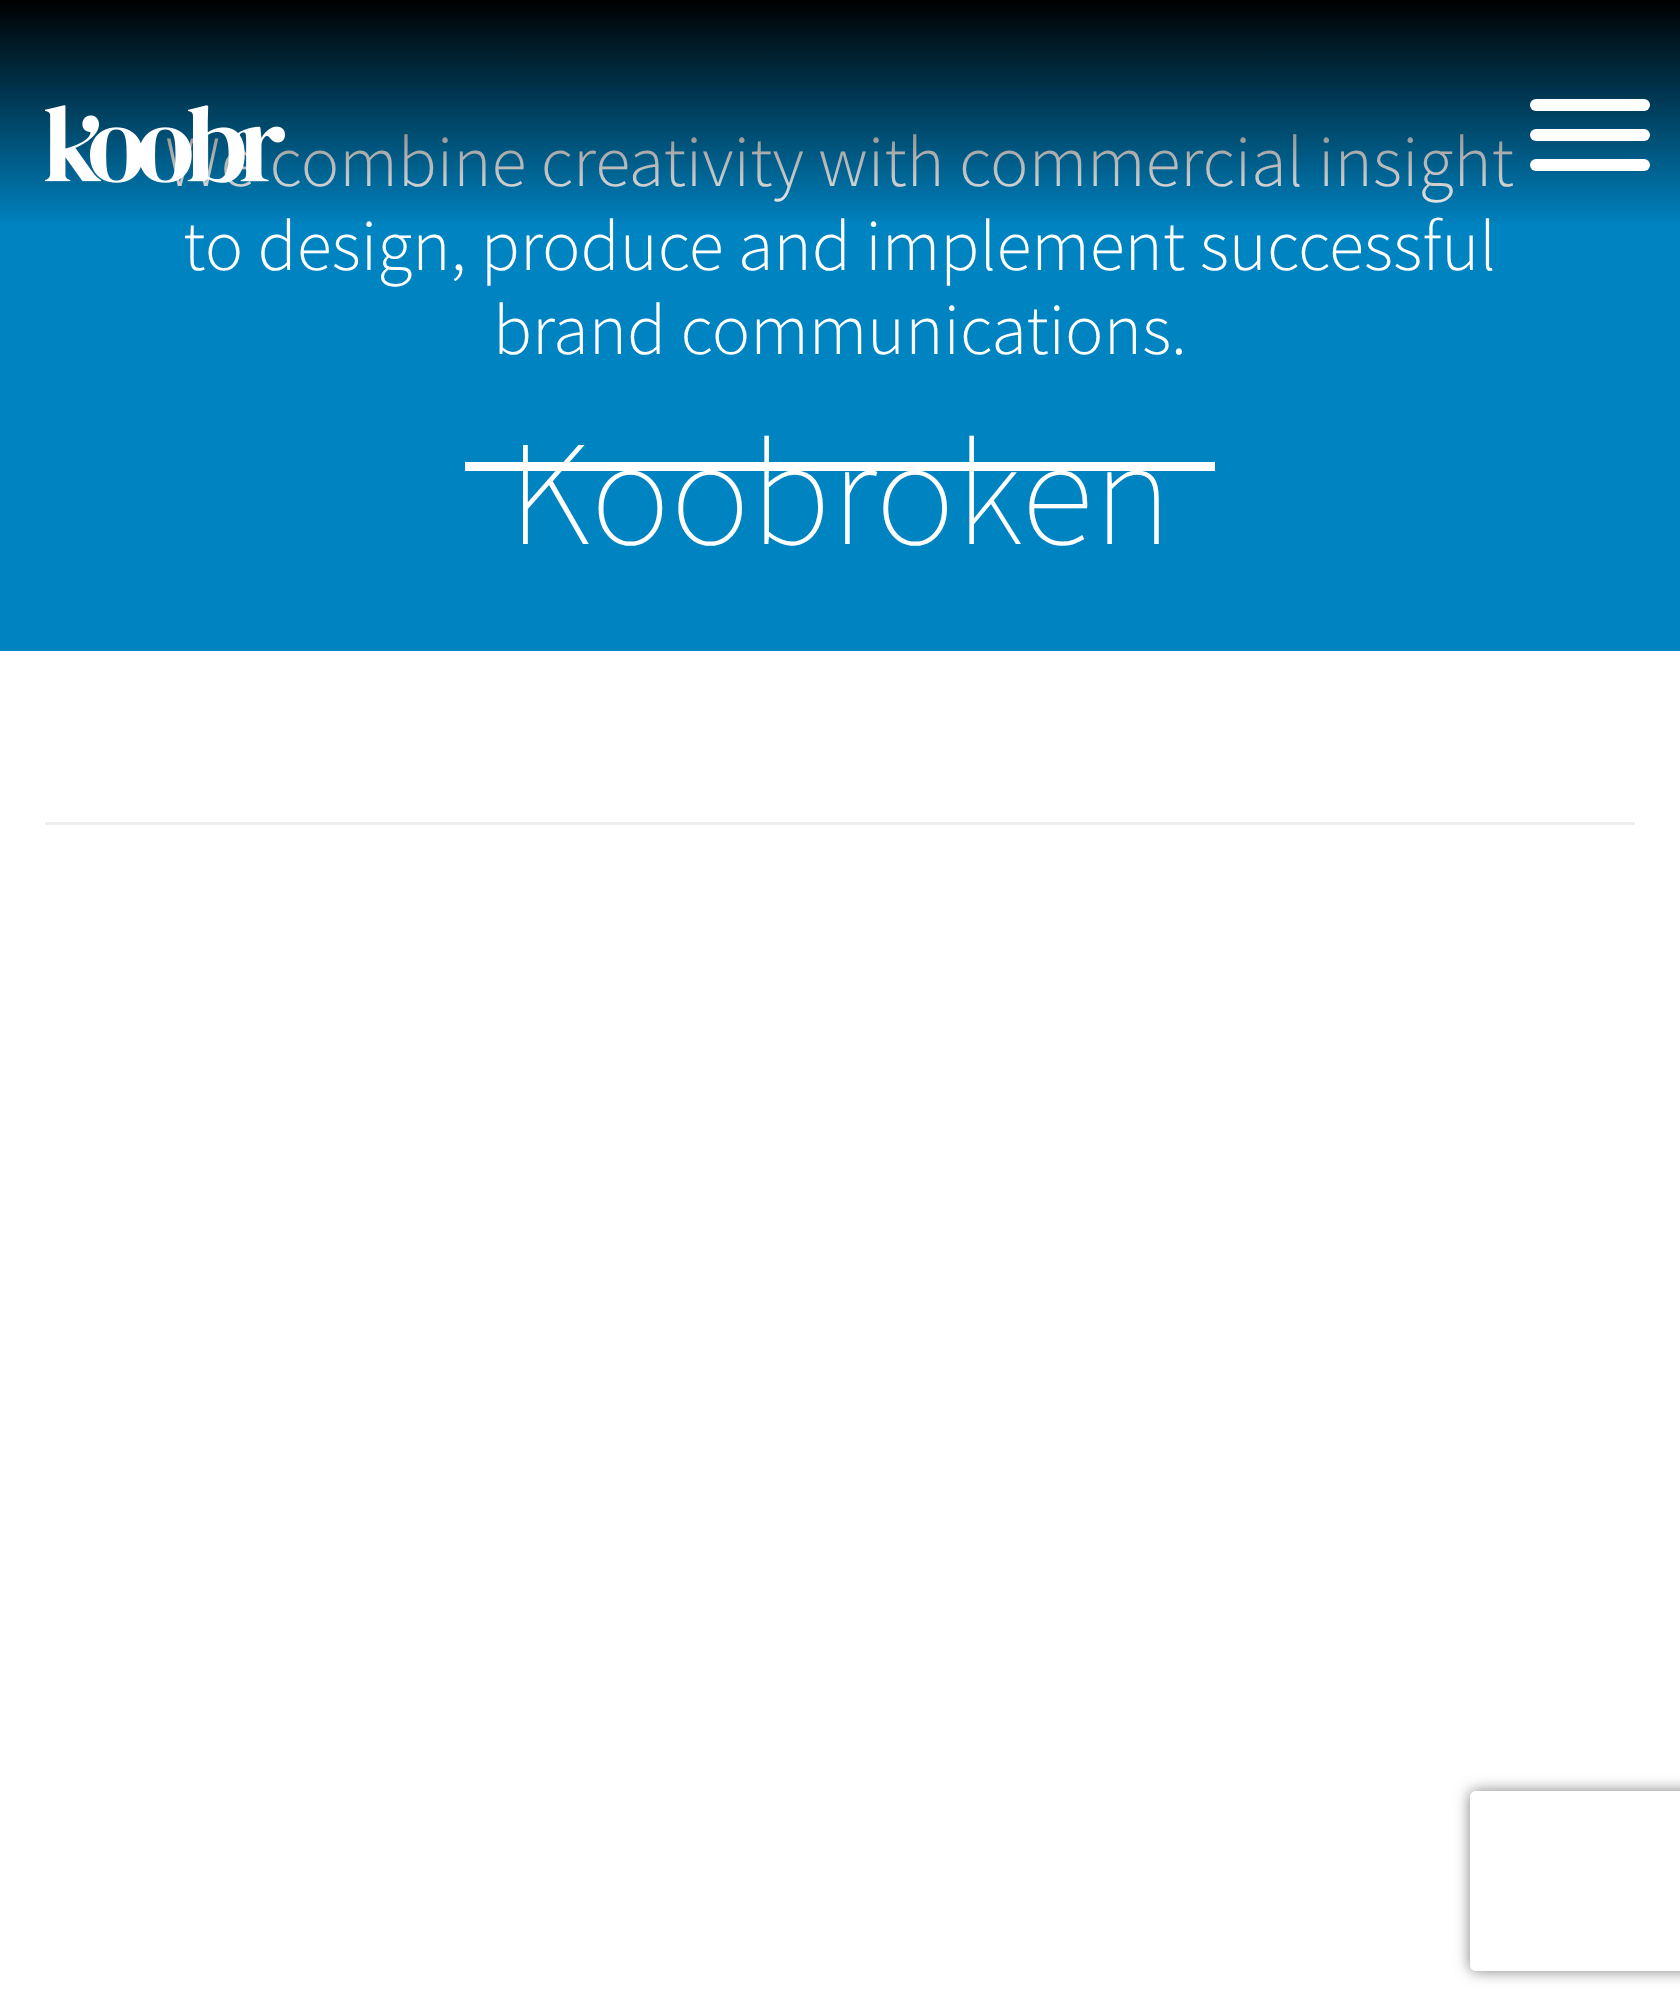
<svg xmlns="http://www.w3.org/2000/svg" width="1680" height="2012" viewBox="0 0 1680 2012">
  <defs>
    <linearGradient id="g1" gradientUnits="userSpaceOnUse" x1="840" y1="0" x2="840" y2="228"><stop offset="0" stop-color="#000000"/><stop offset="1" stop-color="#000000" stop-opacity="0"/></linearGradient>
    <clipPath id="clip1"><path d="M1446 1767H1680V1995H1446ZM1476 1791H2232C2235.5 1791 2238 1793.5 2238 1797V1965C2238 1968.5 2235.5 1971 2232 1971H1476C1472.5 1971 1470 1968.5 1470 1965V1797C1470 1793.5 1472.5 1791 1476 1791Z" clip-rule="evenodd"/></clipPath>
    <filter id="blur1" x="-50%" y="-200%" width="200%" height="500%"><feGaussianBlur stdDeviation="7.5"/></filter>
  </defs>
  <rect width="100%" height="100%" fill="#ffffff"/>
  <rect x="0" y="1" width="1680" height="650" fill="#0083c1"/>
  <text x="165" y="186" font-family="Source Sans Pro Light" font-size="72" font-weight="300" fill="#ffffff">We combine creativity with commercial insight</text>
  <text x="183" y="270" font-family="Source Sans Pro Light" font-size="72" font-weight="300" fill="#ffffff">to design, produce and implement successful</text>
  <rect x="0" y="0" width="1680" height="223" fill="url(#g1)"/>
  <image x="45" y="105" width="240" height="78" href="img1.png"/>
  <rect x="1530" y="129" width="120" height="12" rx="6" fill="#ffffff"/>
  <rect x="1530" y="99" width="120" height="12" rx="6" fill="#ffffff"/>
  <rect x="1530" y="159" width="120" height="12" rx="6" fill="#ffffff"/>
  <text x="493" y="354" font-family="Source Sans Pro Light" font-size="72" font-weight="300" fill="#ffffff">brand communications.</text>
  <rect x="465" y="462" width="750" height="9" fill="#ffffff"/>
  <text x="508" y="544" font-family="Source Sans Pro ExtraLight" font-size="150" font-weight="200" fill="#ffffff">Koobroken</text>
  <rect x="45" y="822" width="1590" height="3" fill="#eeeeee"/>
  <g clip-path="url(#clip1)">
    <rect x="1470" y="1791" width="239" height="180" rx="6" fill="#808080" filter="url(#blur1)"/>
  </g>
</svg>
